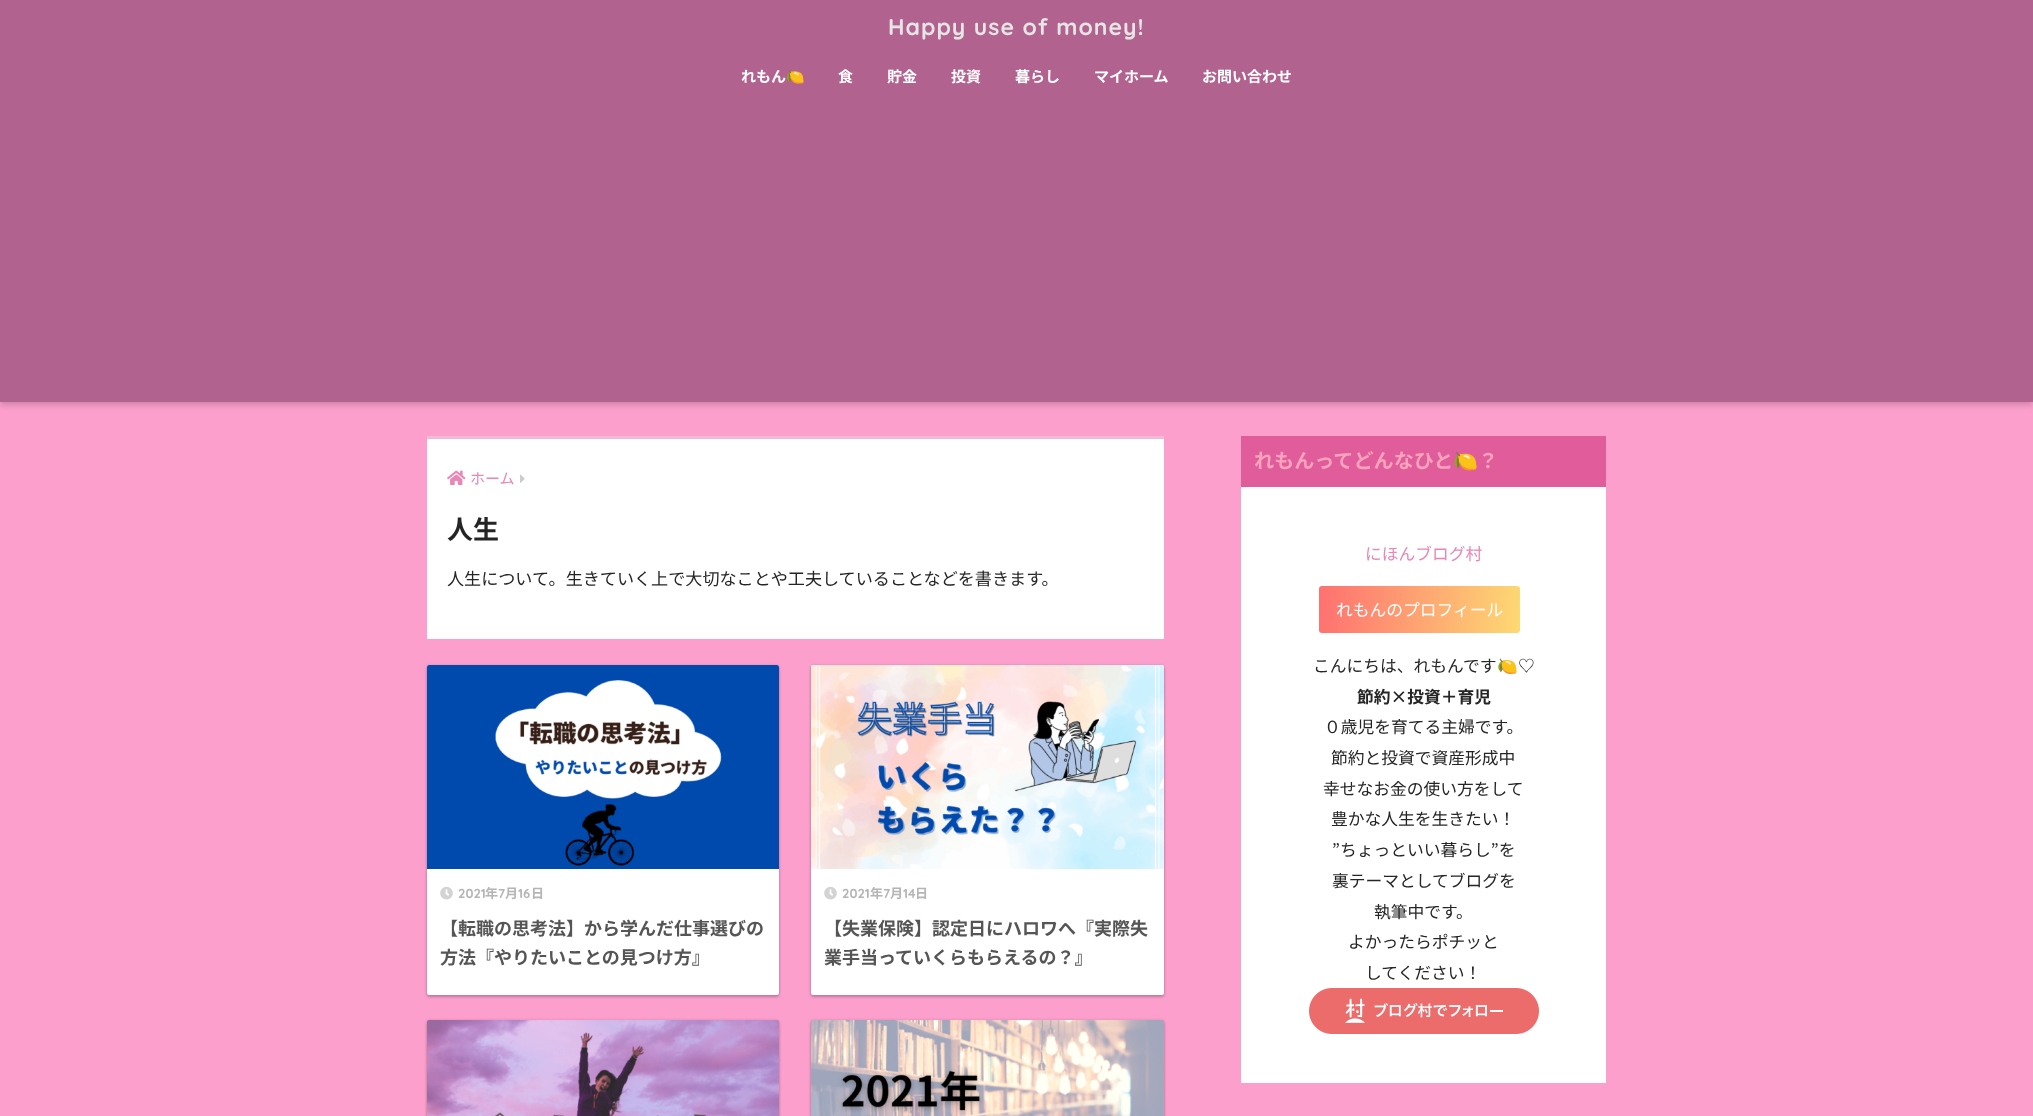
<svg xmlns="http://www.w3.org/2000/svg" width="2033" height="1116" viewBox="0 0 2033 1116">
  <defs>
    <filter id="blur1" x="-50%" y="-200%" width="200%" height="500%"><feGaussianBlur stdDeviation="3"/></filter>
    <filter id="blur2" x="-50%" y="-200%" width="200%" height="500%"><feGaussianBlur stdDeviation="1.5"/></filter>
    <linearGradient id="g1" gradientUnits="userSpaceOnUse" x1="1318" y1="601" x2="1521" y2="618"><stop offset="0" stop-color="#ff7070"/><stop offset="1" stop-color="#fdd973"/></linearGradient>
  </defs>
  <rect width="100%" height="100%" fill="#fc9fcd"/>
  <rect x="0" y="3" width="2033" height="402" fill="#000000" fill-opacity="0.18" filter="url(#blur1)"/>
  <rect x="0" y="0" width="2033" height="402" fill="#b2628e"/>
  <text x="888" y="35" font-family="Quicksand" font-size="23" font-weight="bold" letter-spacing="1" fill="#e5e5e5">Happy use of money!</text>
  <text x="741" y="82" font-family="Noto Sans JP" font-size="15" font-weight="bold" fill="#ffffff">れもん</text>
  <text x="786" y="82" font-family="Noto Color Emoji" font-size="15" font-weight="bold" fill="#ffffff">🍋</text>
  <text x="838" y="82" font-family="Noto Sans JP" font-size="15" font-weight="bold" fill="#ffffff">食</text>
  <text x="887" y="82" font-family="Noto Sans JP" font-size="15" font-weight="bold" fill="#ffffff">貯金</text>
  <text x="951" y="82" font-family="Noto Sans JP" font-size="15" font-weight="bold" fill="#ffffff">投資</text>
  <text x="1015" y="82" font-family="Noto Sans JP" font-size="15" font-weight="bold" fill="#ffffff">暮らし</text>
  <text x="1094" y="82" font-family="Noto Sans JP" font-size="15" font-weight="bold" fill="#ffffff">マイホーム</text>
  <text x="1202" y="82" font-family="Noto Sans JP" font-size="15" font-weight="bold" fill="#ffffff">お問い合わせ</text>
  <rect x="427" y="439" width="737" height="200" fill="#ffffff"/>
  <rect x="427" y="436" width="737" height="3" fill="#f3bad6"/>
  <image x="447" y="470" width="19" height="15" href="img1.png"/>
  <text x="470" y="484" font-family="Noto Sans JP" font-size="15" fill="#ea86b6">ホーム</text>
  <image x="520" y="474" width="5" height="9" href="img2.png"/>
  <text x="447" y="539" font-family="Noto Sans JP" font-size="26" font-weight="bold" fill="#252525">人生</text>
  <text x="447" y="585" font-family="Noto Sans JP" font-size="17.1" fill="#252525">人生について。生きていく上で大切なことや工夫していることなどを書きます。</text>
  <rect x="427" y="667" width="352" height="330" rx="2" fill="#000000" fill-opacity="0.22" filter="url(#blur2)"/>
  <rect x="427" y="665" width="352" height="330" rx="2" fill="#000000" fill-opacity="0.12" filter="url(#blur2)"/>
  <rect x="427" y="665" width="352" height="330" rx="2" fill="#ffffff"/>
  <image x="427" y="665" width="352" height="204" href="img3.png"/>
  <image x="440" y="886" width="13" height="14" href="img4.png"/>
  <text x="458" y="898" font-family="Quicksand" font-size="13" font-weight="bold" fill="#b5b5b5">2021</text>
  <text x="485" y="898" font-family="Noto Sans JP" font-size="13" font-weight="bold" fill="#b5b5b5">年</text>
  <text x="498" y="898" font-family="Quicksand" font-size="13" font-weight="bold" fill="#b5b5b5">7</text>
  <text x="505" y="898" font-family="Noto Sans JP" font-size="13" font-weight="bold" fill="#b5b5b5">月</text>
  <text x="518" y="898" font-family="Quicksand" font-size="13" font-weight="bold" fill="#b5b5b5">16</text>
  <text x="531" y="898" font-family="Noto Sans JP" font-size="13" font-weight="bold" fill="#b5b5b5">日</text>
  <text x="440" y="935" font-family="Noto Sans JP" font-size="18" font-weight="bold" fill="#555555">【転職の思考法】から学んだ仕事選びの</text>
  <text x="440" y="964" font-family="Noto Sans JP" font-size="18" font-weight="bold" fill="#555555">方法『やりたいことの見つけ方』</text>
  <rect x="811" y="667" width="353" height="330" rx="2" fill="#000000" fill-opacity="0.22" filter="url(#blur2)"/>
  <rect x="811" y="665" width="353" height="330" rx="2" fill="#000000" fill-opacity="0.12" filter="url(#blur2)"/>
  <rect x="811" y="665" width="353" height="330" rx="2" fill="#ffffff"/>
  <image x="811" y="665" width="353" height="204" href="img5.png"/>
  <image x="824" y="886" width="13" height="14" href="img4.png"/>
  <text x="842" y="898" font-family="Quicksand" font-size="13" font-weight="bold" fill="#b5b5b5">2021</text>
  <text x="870" y="898" font-family="Noto Sans JP" font-size="13" font-weight="bold" fill="#b5b5b5">年</text>
  <text x="883" y="898" font-family="Quicksand" font-size="13" font-weight="bold" fill="#b5b5b5">7</text>
  <text x="890" y="898" font-family="Noto Sans JP" font-size="13" font-weight="bold" fill="#b5b5b5">月</text>
  <text x="903" y="898" font-family="Quicksand" font-size="13" font-weight="bold" fill="#b5b5b5">14</text>
  <text x="915" y="898" font-family="Noto Sans JP" font-size="13" font-weight="bold" fill="#b5b5b5">日</text>
  <text x="824" y="935" font-family="Noto Sans JP" font-size="18" font-weight="bold" fill="#555555">【失業保険】認定日にハロワへ『実際失</text>
  <text x="824" y="964" font-family="Noto Sans JP" font-size="18" font-weight="bold" fill="#555555">業手当っていくらもらえるの？』</text>
  <rect x="427" y="1022" width="352" height="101" rx="2" fill="#000000" fill-opacity="0.22" filter="url(#blur2)"/>
  <rect x="427" y="1020" width="352" height="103" rx="2" fill="#000000" fill-opacity="0.12" filter="url(#blur2)"/>
  <image x="427" y="1020" width="352" height="96" href="img6.png"/>
  <rect x="811" y="1022" width="353" height="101" rx="2" fill="#000000" fill-opacity="0.22" filter="url(#blur2)"/>
  <rect x="811" y="1020" width="353" height="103" rx="2" fill="#000000" fill-opacity="0.12" filter="url(#blur2)"/>
  <image x="811" y="1020" width="353" height="96" href="img7.png"/>
  <rect x="1241" y="487" width="365" height="596" fill="#ffffff"/>
  <rect x="1241" y="436" width="365" height="51" fill="#e05c9b"/>
  <text x="1254" y="468" font-family="Noto Sans JP" font-size="20.1" font-weight="bold" fill="#f9a4bc">れもんってどんなひと</text>
  <text x="1453" y="468" font-family="Noto Color Emoji" font-size="20.1" font-weight="bold" fill="#f9a4bc">🍋</text>
  <text x="1478" y="468" font-family="Noto Sans JP" font-size="20.1" font-weight="bold" fill="#f9a4bc">？</text>
  <text x="1365" y="560" font-family="Noto Sans JP" font-size="16.75" fill="#ea86b6">にほんブログ村</text>
  <rect x="1319" y="586" width="201" height="47" rx="3" fill="url(#g1)"/>
  <text x="1336" y="616" font-family="Noto Sans JP" font-size="16.75" fill="#ffffff">れもんのプロフィール</text>
  <text x="1313" y="672" font-family="Noto Sans JP" font-size="16.75" fill="#252525">こんにちは、れもんです</text>
  <text x="1497" y="672" font-family="Noto Color Emoji" font-size="16.75" fill="#252525">🍋</text>
  <text x="1518" y="672" font-family="Noto Sans JP" font-size="16.75" fill="#252525">♡</text>
  <text x="1357" y="703" font-family="Noto Sans JP" font-size="16.75" font-weight="bold" fill="#252525">節約×投資＋育児</text>
  <text x="1324" y="733" font-family="Noto Sans JP" font-size="16.75" fill="#252525">０歳児を育てる主婦です。</text>
  <text x="1331" y="764" font-family="Noto Sans JP" font-size="16.75" fill="#252525">節約と投資で資産形成中</text>
  <text x="1323" y="795" font-family="Noto Sans JP" font-size="16.75" fill="#252525">幸せなお金の使い方をして</text>
  <text x="1331" y="825" font-family="Noto Sans JP" font-size="16.75" fill="#252525">豊かな人生を生きたい！</text>
  <text x="1332" y="856" font-family="Noto Sans JP" font-size="16.75" fill="#252525">”ちょっといい暮らし”を</text>
  <text x="1332" y="887" font-family="Noto Sans JP" font-size="16.75" fill="#252525">裏テーマとしてブログを</text>
  <text x="1374" y="918" font-family="Noto Sans JP" font-size="16.75" fill="#252525">執筆中です。</text>
  <text x="1348" y="948" font-family="Noto Sans JP" font-size="16.75" fill="#252525">よかったらポチッと</text>
  <text x="1365" y="979" font-family="Noto Sans JP" font-size="16.75" fill="#252525">してください！</text>
  <image x="1309" y="988" width="230" height="46" href="img8.png"/>
</svg>
